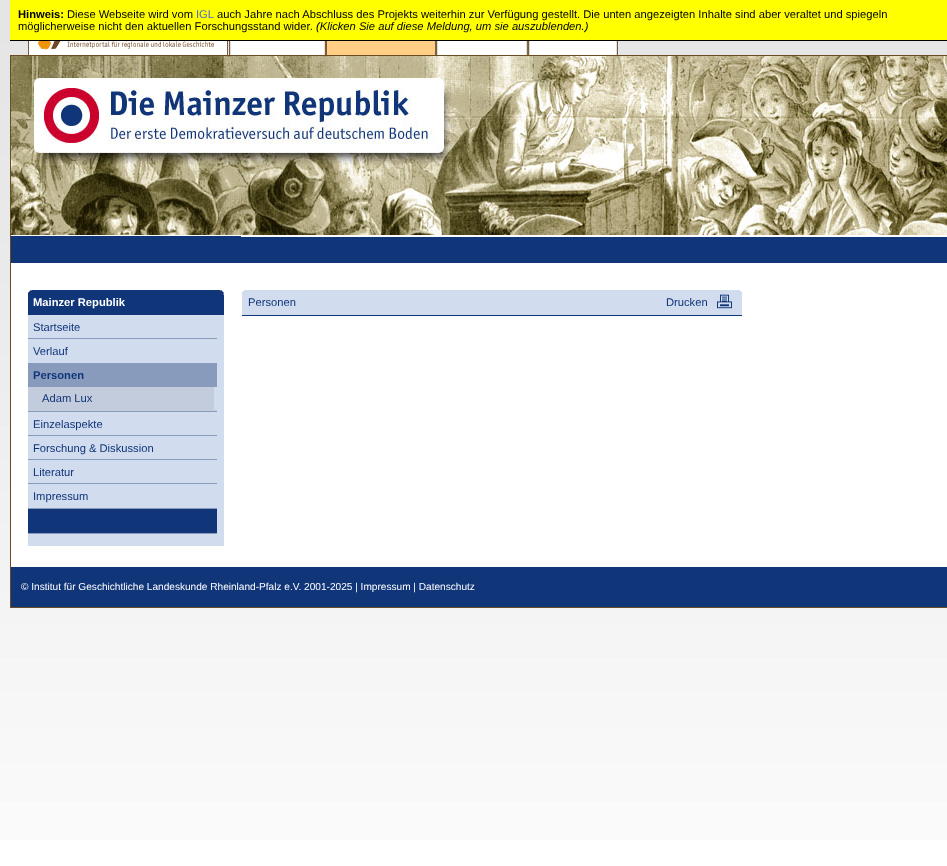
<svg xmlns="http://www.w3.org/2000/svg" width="947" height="866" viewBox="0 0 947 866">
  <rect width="100%" height="100%" fill="#ffffff"/>
  <image x="0" y="0" width="947" height="840" href="img1.png"/>
  <rect x="10" y="0" width="937" height="40" fill="#ffff00"/>
  <rect x="10" y="40" width="937" height="1" fill="#000000"/>
  <text x="18" y="18" font-family="Liberation Sans" font-size="11.2" font-weight="bold" fill="#000000">Hinweis:</text>
  <text x="67" y="18" font-family="Liberation Sans" font-size="11.2" fill="#000000">Diese Webseite wird vom</text>
  <text x="196" y="18" font-family="Liberation Sans" font-size="11.2" fill="#4868de">IGL</text>
  <text x="217" y="18" font-family="Liberation Sans" font-size="11.2" fill="#000000">auch Jahre nach Abschluss des Projekts weiterhin zur Verfügung gestellt. Die unten angezeigten Inhalte sind aber veraltet und spiegeln</text>
  <text x="18" y="30" font-family="Liberation Sans" font-size="11.2" fill="#000000">möglicherweise nicht den aktuellen Forschungsstand wider.</text>
  <text x="316" y="30" font-family="Liberation Sans" font-size="11.2" font-style="italic" fill="#000000">(Klicken Sie auf diese Meldung, um sie auszublenden.)</text>
  <rect x="11" y="263" width="936" height="304" fill="#ffffff"/>
  <rect x="10" y="607" width="937" height="1" fill="#694c22"/>
  <rect x="10" y="55" width="1" height="553" fill="#694c22"/>
  <image x="28" y="41" width="200" height="14" href="img2.png"/>
  <image x="239" y="41" width="87" height="14" href="img3.png"/>
  <image x="229" y="41" width="10" height="14" href="img4.png"/>
  <image x="334" y="41" width="102" height="14" href="img5.png"/>
  <image x="326" y="41" width="8" height="14" href="img6.png"/>
  <image x="446" y="41" width="82" height="14" href="img7.png"/>
  <image x="436" y="41" width="10" height="14" href="img4.png"/>
  <image x="538" y="41" width="80" height="14" href="img8.png"/>
  <image x="528" y="41" width="10" height="14" href="img4.png"/>
  <image x="11" y="56" width="936" height="179" href="img9.png"/>
  <rect x="11" y="55" width="936" height="1" fill="#694c22"/>
  <rect x="11" y="236" width="936" height="27" fill="#103579"/>
  <rect x="11" y="235" width="936" height="1" fill="#ffffff"/>
  <rect x="241" y="236" width="706" height="1" fill="#ffffff"/>
  <rect x="28" y="290" width="196" height="25" fill="#103579"/>
  <image x="220" y="290" width="4" height="5" href="img10.png"/>
  <image x="28" y="290" width="4" height="3" href="img11.png"/>
  <text x="33" y="306" font-family="Liberation Sans" font-size="11.2" font-weight="bold" fill="#ffffff">Mainzer Republik</text>
  <rect x="28" y="315" width="196" height="231" fill="#d1dcef"/>
  <rect x="28" y="338" width="189" height="1" fill="#889bbd"/>
  <text x="33" y="331" font-family="Liberation Sans" font-size="11.2" fill="#103579">Startseite</text>
  <rect x="28" y="363" width="189" height="24" fill="#889bbd"/>
  <text x="33" y="355" font-family="Liberation Sans" font-size="11.2" fill="#103579">Verlauf</text>
  <rect x="28" y="411" width="189" height="1" fill="#889bbd"/>
  <text x="33" y="379" font-family="Liberation Sans" font-size="11.2" font-weight="bold" fill="#103579">Personen</text>
  <rect x="28" y="410" width="189" height="1" fill="#c3ccdd"/>
  <rect x="28" y="387" width="186" height="23" fill="#c3ccdd"/>
  <text x="42" y="402" font-family="Liberation Sans" font-size="11.2" fill="#103579">Adam Lux</text>
  <rect x="28" y="435" width="189" height="1" fill="#889bbd"/>
  <text x="33" y="428" font-family="Liberation Sans" font-size="11.2" fill="#103579">Einzelaspekte</text>
  <rect x="28" y="459" width="189" height="1" fill="#889bbd"/>
  <text x="33" y="452" font-family="Liberation Sans" font-size="11.2" fill="#103579">Forschung &amp; Diskussion</text>
  <rect x="28" y="483" width="189" height="1" fill="#889bbd"/>
  <text x="33" y="476" font-family="Liberation Sans" font-size="11.2" fill="#103579">Literatur</text>
  <rect x="28" y="508" width="189" height="1" fill="#889bbd"/>
  <text x="33" y="500" font-family="Liberation Sans" font-size="11.2" fill="#103579">Impressum</text>
  <rect x="28" y="509" width="189" height="24" fill="#103579"/>
  <rect x="28" y="533" width="189" height="1" fill="#889bbd"/>
  <rect x="242" y="290" width="500" height="25" fill="#d1dcef"/>
  <image x="242" y="290" width="2" height="2" href="img12.png"/>
  <rect x="242" y="315" width="500" height="1" fill="#103579"/>
  <text x="248" y="306" font-family="Liberation Sans" font-size="11.2" fill="#103579">Personen</text>
  <image x="740" y="290" width="2" height="2" href="img13.png"/>
  <image x="717" y="294" width="15" height="15" href="img14.png"/>
  <text x="666" y="306" font-family="Liberation Sans" font-size="11.2" fill="#103579">Drucken</text>
  <rect x="11" y="567" width="936" height="40" fill="#103579"/>
  <text x="21" y="590" font-family="Liberation Sans" font-size="10.1" fill="#ffffff">© Institut für Geschichtliche Landeskunde Rheinland-Pfalz e.V. 2001-2025 | Impressum | Datenschutz</text>
</svg>
